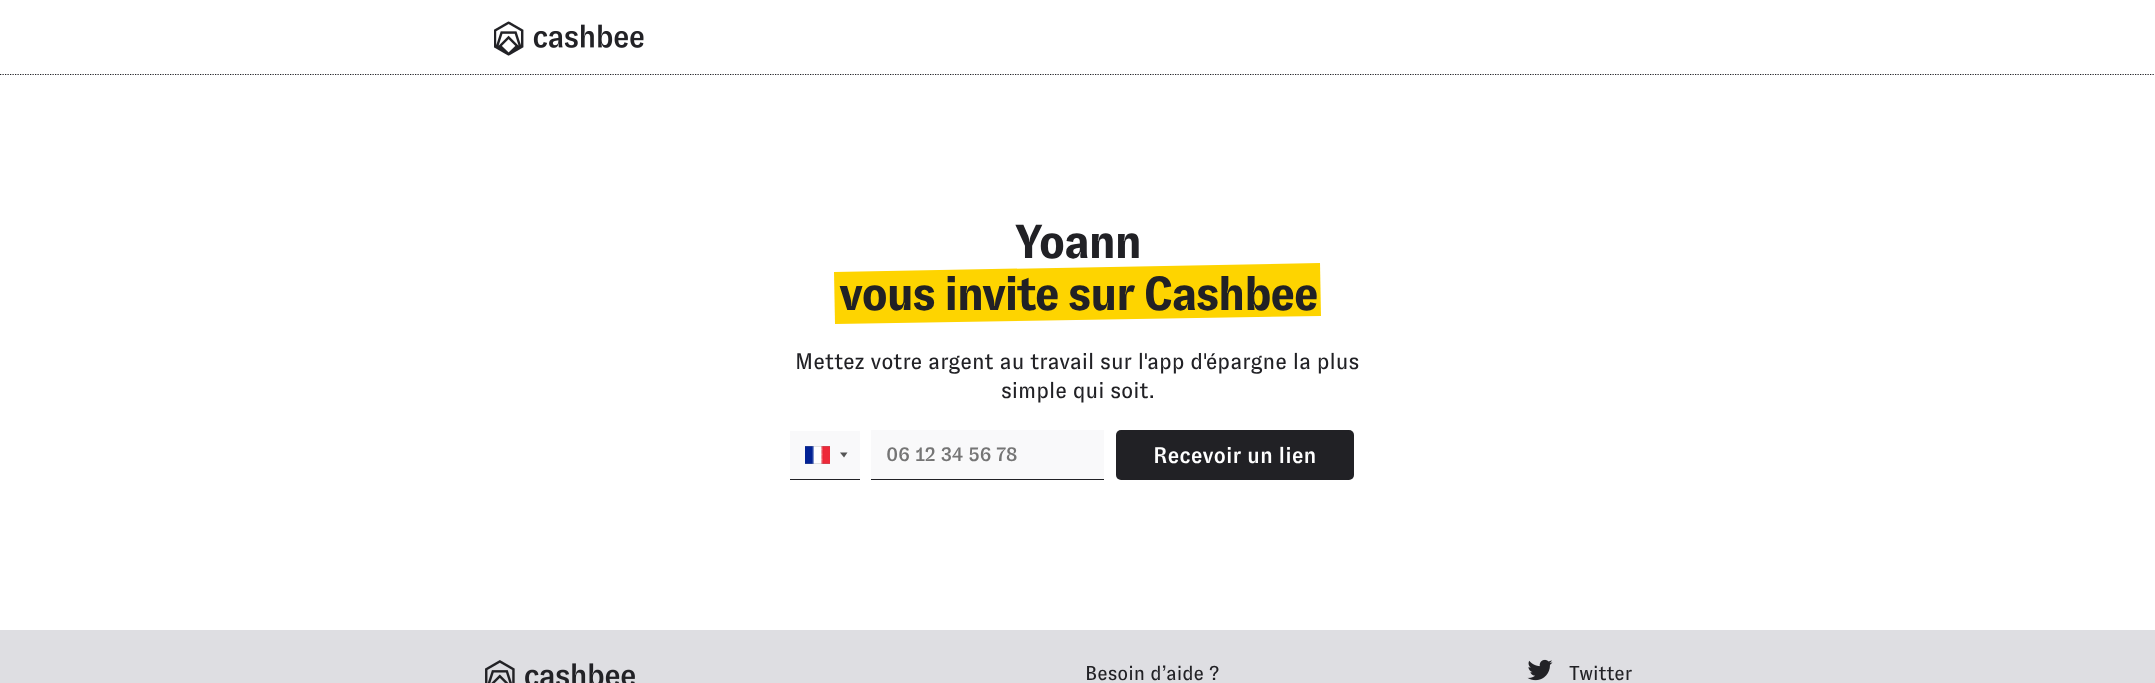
<svg xmlns="http://www.w3.org/2000/svg" width="2155" height="683" viewBox="0 0 2155 683">
  <defs>
    <filter id="blur1" x="-50%" y="-200%" width="200%" height="500%"><feGaussianBlur stdDeviation="0.5"/></filter>
  </defs>
  <rect width="100%" height="100%" fill="#ffffff"/>
  <path d="M0 74.5H2155" fill="none" stroke="#212125" stroke-width="1.2" stroke-dasharray="1.25 1.25"/>
  <image x="494" y="21" width="150" height="35" href="img1.png"/>
  <text x="1015" y="258" font-family="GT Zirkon" font-size="47.5" font-weight="bold" letter-spacing="-1.9" fill="#212125">Yoann</text>
  <path d="M834 272L1320 263L1321 316L835 324Z" fill="#fed400"/>
  <text x="839" y="310" font-family="GT Zirkon" font-size="47.5" font-weight="bold" letter-spacing="-1.9" fill="#212125">vous invite sur Cashbee</text>
  <text x="795" y="369" font-family="GT Zirkon" font-size="22.5" fill="#212125">Mettez votre argent au travail sur l'app d'épargne la plus</text>
  <text x="1001" y="398" font-family="GT Zirkon" font-size="22.5" fill="#212125">simple qui soit.</text>
  <rect x="790" y="431" width="70" height="48" fill="#f9f9fa"/>
  <rect x="790" y="479" width="70" height="1" fill="#212125"/>
  <rect x="805" y="446" width="25" height="18" fill="#888888" filter="url(#blur1)"/>
  <image x="805" y="446" width="25" height="18" href="img2.png"/>
  <path d="M840 452.5H847.5L844 457.5Z" fill="#555555"/>
  <rect x="871" y="430" width="233" height="49" fill="#f9f9fa"/>
  <rect x="871" y="479" width="233" height="1" fill="#212125"/>
  <text x="886" y="461" font-family="GT Zirkon" font-size="20" font-weight="500" fill="#757575">06 12 34 56 78</text>
  <rect x="1116" y="430" width="238" height="50" rx="5" fill="#212125"/>
  <text x="1153" y="463" font-family="GT Zirkon" font-size="22.5" font-weight="500" fill="#ffffff">Recevoir un lien</text>
  <rect x="0" y="630" width="2155" height="53" fill="#dedee2"/>
  <image x="485" y="660" width="150" height="23" href="img3.png"/>
  <text x="1085" y="680" font-family="GT Zirkon" font-size="20" fill="#212125">Besoin d’aide ?</text>
  <image x="1527" y="659" width="26" height="22" href="img4.png"/>
  <text x="1569" y="680" font-family="GT Zirkon" font-size="20" fill="#212125">Twitter</text>
</svg>
